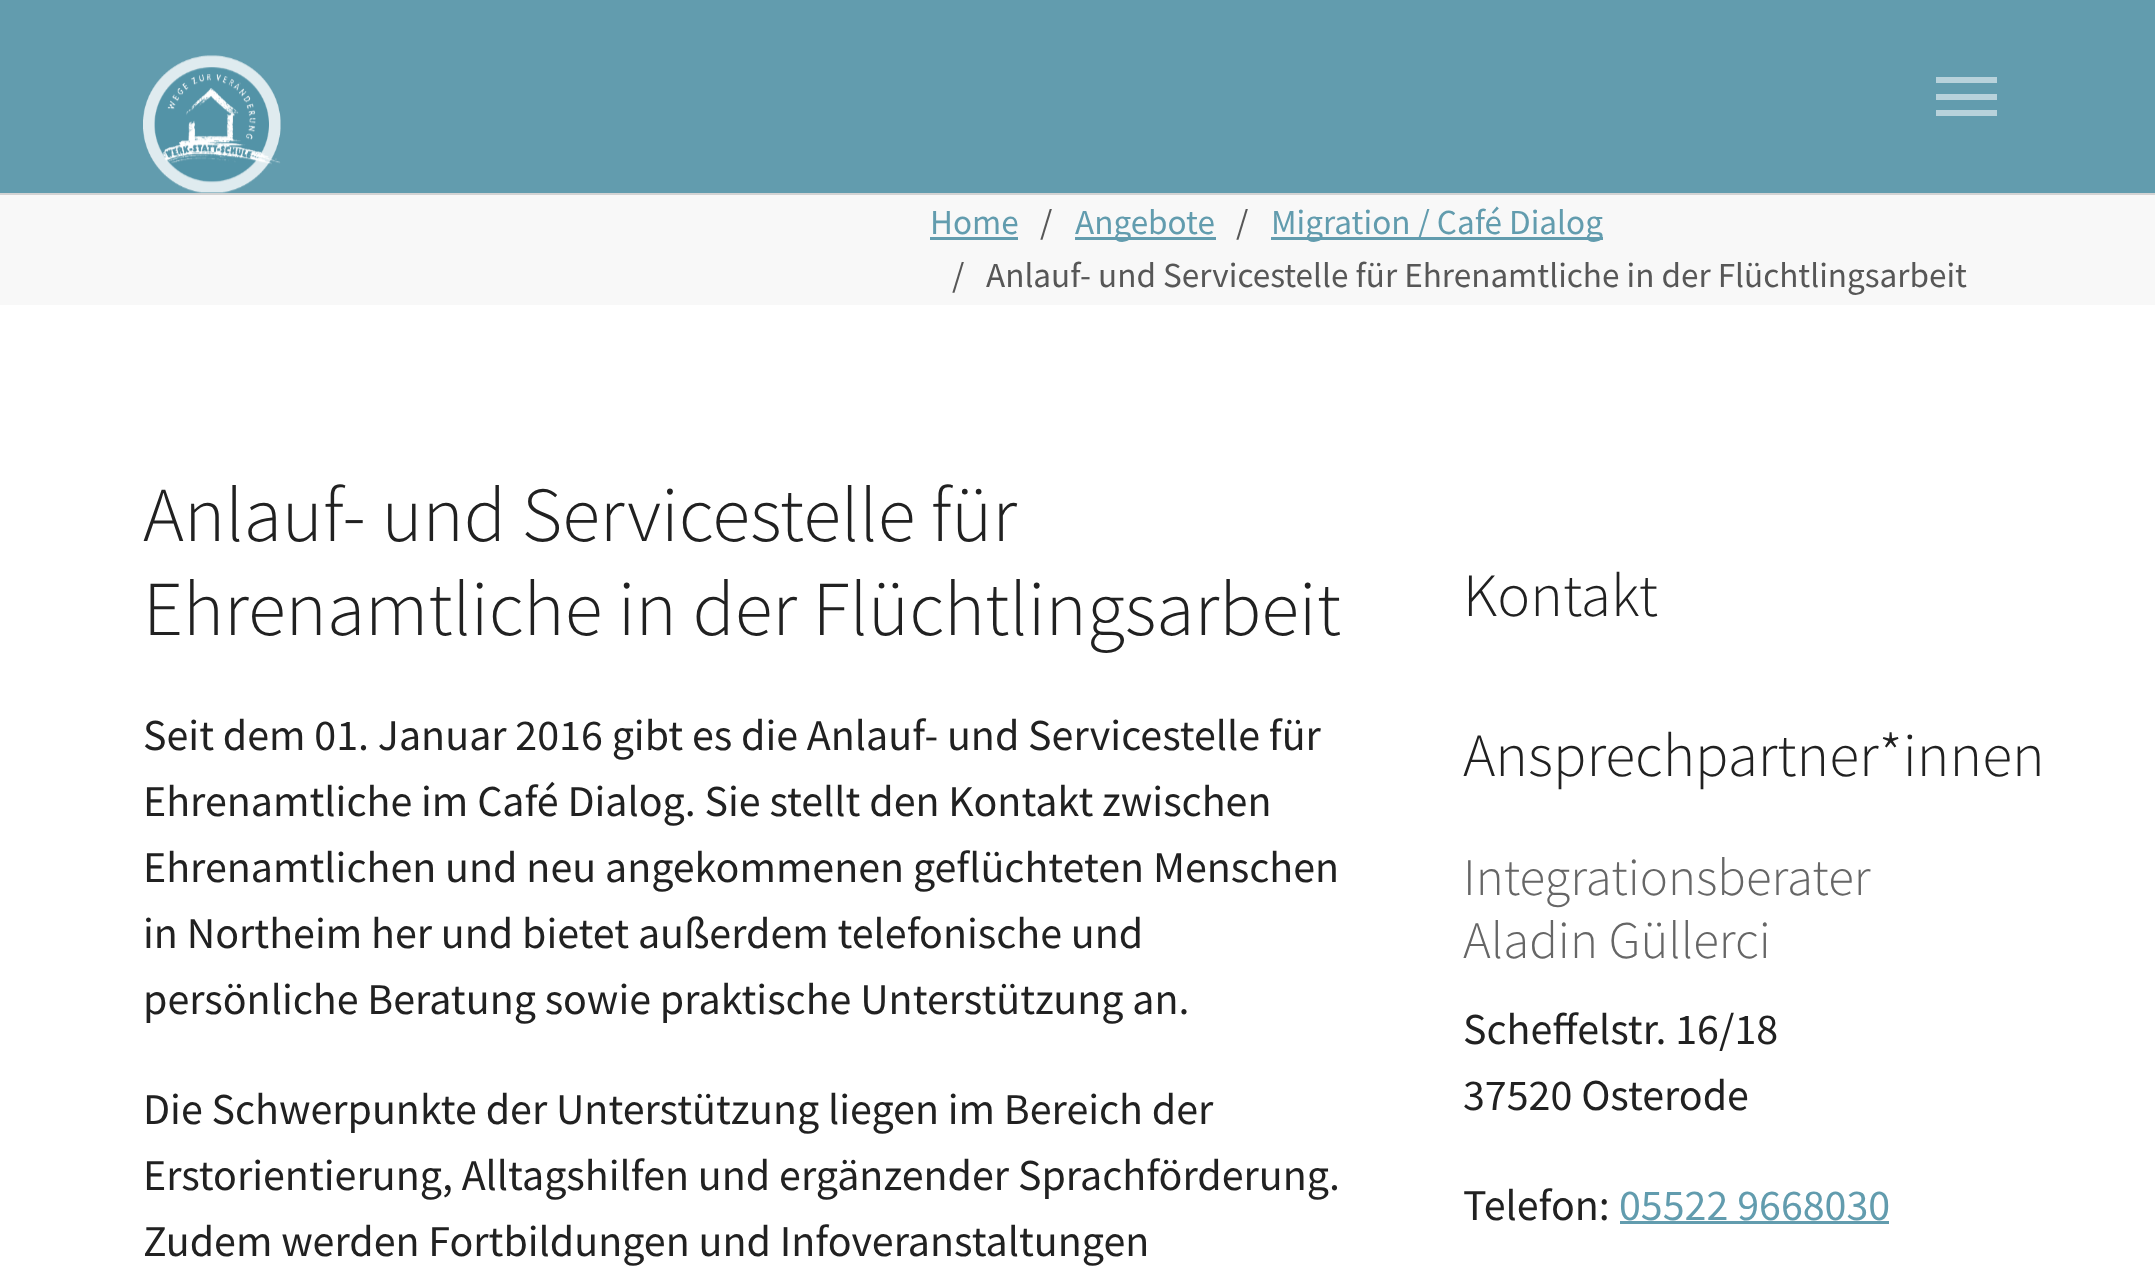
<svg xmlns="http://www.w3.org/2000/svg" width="2155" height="1267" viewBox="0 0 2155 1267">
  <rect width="100%" height="100%" fill="#ffffff"/>
  <rect x="0" y="0" width="2155" height="193" fill="#629cae"/>
  <image x="143" y="55" width="138" height="138" href="img1.png"/>
  <rect x="1936" y="94" width="61" height="6" fill="#b8d2db"/>
  <rect x="1936" y="77" width="61" height="6" fill="#b8d2db"/>
  <rect x="1936" y="110" width="61" height="6" fill="#b8d2db"/>
  <rect x="0" y="195" width="2155" height="110" fill="#f8f8f8"/>
  <rect x="0" y="193" width="2155" height="2" fill="#d3d3d3"/>
  <text x="930" y="234" font-family="Source Sans Pro" font-size="35.2" fill="#629cae">Home</text>
  <rect x="930" y="237" width="88" height="3" fill="#629cae"/>
  <text x="1040" y="234" font-family="Source Sans Pro" font-size="35.2" fill="#575757">/</text>
  <rect x="1075" y="237" width="141" height="3" fill="#629cae"/>
  <text x="1075" y="234" font-family="Source Sans Pro" font-size="35.2" fill="#629cae">Angebote</text>
  <text x="1236" y="234" font-family="Source Sans Pro" font-size="35.2" fill="#575757">/</text>
  <rect x="1271" y="237" width="332" height="3" fill="#629cae"/>
  <text x="1271" y="234" font-family="Source Sans Pro" font-size="35.2" fill="#629cae">Migration / Café Dialog</text>
  <text x="952" y="287" font-family="Source Sans Pro" font-size="35.2" fill="#575757">/</text>
  <text x="986" y="287" font-family="Source Sans Pro" font-size="35.2" fill="#575757">Anlauf- und Servicestelle für Ehrenamtliche in der Flüchtlingsarbeit</text>
  <text x="143" y="541" font-family="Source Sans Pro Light" font-size="77.75" font-weight="300" fill="#212121">Anlauf- und Servicestelle für</text>
  <text x="143" y="635" font-family="Source Sans Pro Light" font-size="77.75" font-weight="300" fill="#212121">Ehrenamtliche in der Flüchtlingsarbeit</text>
  <text x="143" y="750" font-family="Source Sans Pro" font-size="44" fill="#212121">Seit dem 01. Januar 2016 gibt es die Anlauf- und Servicestelle für</text>
  <text x="143" y="816" font-family="Source Sans Pro" font-size="44" fill="#212121">Ehrenamtliche im Café Dialog. Sie stellt den Kontakt zwischen</text>
  <text x="143" y="882" font-family="Source Sans Pro" font-size="44" fill="#212121">Ehrenamtlichen und neu angekommenen geflüchteten Menschen</text>
  <text x="143" y="948" font-family="Source Sans Pro" font-size="44" fill="#212121">in Northeim her und bietet außerdem telefonische und</text>
  <text x="143" y="1014" font-family="Source Sans Pro" font-size="44" fill="#212121">persönliche Beratung sowie praktische Unterstützung an.</text>
  <text x="143" y="1124" font-family="Source Sans Pro" font-size="44" fill="#212121">Die Schwerpunkte der Unterstützung liegen im Bereich der</text>
  <text x="143" y="1190" font-family="Source Sans Pro" font-size="44" fill="#212121">Erstorientierung, Alltagshilfen und ergänzender Sprachförderung.</text>
  <text x="143" y="1256" font-family="Source Sans Pro" font-size="44" fill="#212121">Zudem werden Fortbildungen und Infoveranstaltungen</text>
  <text x="1463" y="616" font-family="Source Sans Pro Light" font-size="61.5" font-weight="300" fill="#212121">Kontakt</text>
  <text x="1463" y="776" font-family="Source Sans Pro Light" font-size="61.5" font-weight="300" fill="#212121">Ansprechpartner*innen</text>
  <text x="1463" y="895" font-family="Source Sans Pro Light" font-size="52.75" font-weight="300" fill="#666666">Integrationsberater</text>
  <text x="1463" y="958" font-family="Source Sans Pro Light" font-size="52.75" font-weight="300" fill="#666666">Aladin Güllerci</text>
  <text x="1463" y="1044" font-family="Source Sans Pro" font-size="44" fill="#212121">Scheffelstr. 16/18</text>
  <text x="1463" y="1110" font-family="Source Sans Pro" font-size="44" fill="#212121">37520 Osterode</text>
  <text x="1463" y="1220" font-family="Source Sans Pro" font-size="44" fill="#212121">Telefon:</text>
  <text x="1619" y="1220" font-family="Source Sans Pro" font-size="44" fill="#629cae">05522 9668030</text>
  <rect x="1620" y="1221" width="269" height="3" fill="#629cae"/>
</svg>
